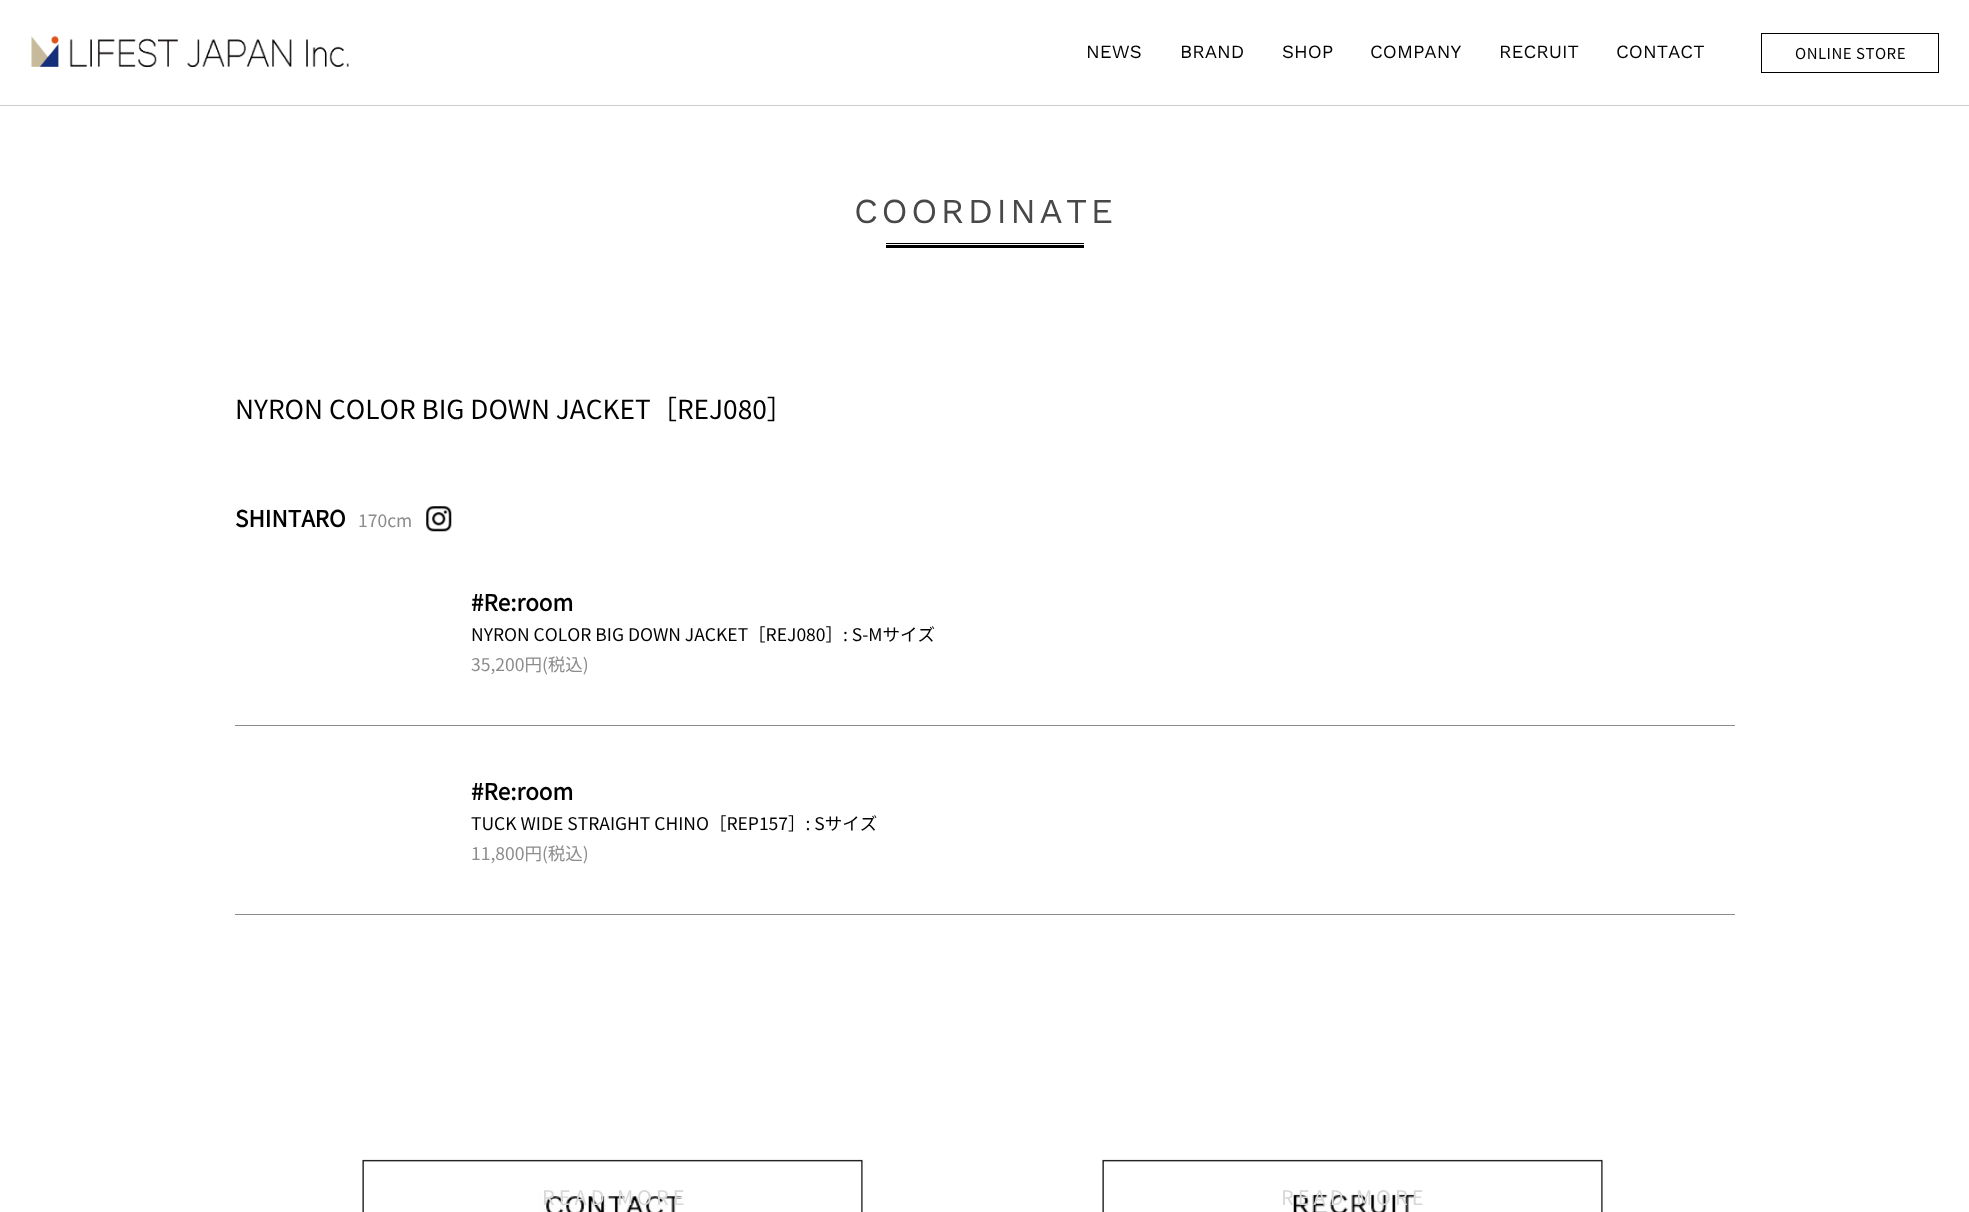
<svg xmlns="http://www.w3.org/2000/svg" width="1969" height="1212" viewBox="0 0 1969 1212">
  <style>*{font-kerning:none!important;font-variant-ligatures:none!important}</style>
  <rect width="100%" height="100%" fill="#ffffff"/>
  <rect x="0" y="105" width="1969" height="1" fill="#cccccc"/>
  <image x="31" y="35" width="318" height="33" href="img1.png"/>
  <text x="1086" y="58" font-family="Work Sans" font-size="18.75" fill="#000000">NEWS</text>
  <text x="1180" y="58" font-family="Work Sans" font-size="18.75" fill="#000000">BRAND</text>
  <text x="1282" y="58" font-family="Work Sans" font-size="18.75" fill="#000000">SHOP</text>
  <text x="1370" y="58" font-family="Work Sans" font-size="18.75" fill="#000000">COMPANY</text>
  <text x="1499" y="58" font-family="Work Sans" font-size="18.75" fill="#000000">RECRUIT</text>
  <text x="1616" y="58" font-family="Work Sans" font-size="18.75" fill="#000000">CONTACT</text>
  <rect x="1761.5" y="33.5" width="177" height="39" fill="none" stroke="#000000"/>
  <text x="1795" y="59" font-family="Noto Sans JP" font-size="15" font-weight="100" letter-spacing="0.5" fill="#000000">ONLINE STORE</text>
  <text x="854" y="223" font-family="Work Sans" font-size="35" letter-spacing="3.5" fill="#484848">COORDINATE</text>
  <rect x="886" y="243" width="198" height="1" fill="#000000"/>
  <rect x="886" y="245" width="198" height="3" fill="#000000"/>
  <text x="235" y="419" font-family="Noto Sans JP" font-size="26.25" font-weight="100" fill="#000000">NYRON COLOR BIG DOWN JACKET［REJ080］</text>
  <text x="235" y="527" font-family="Noto Sans JP" font-size="22.5" font-weight="bold" fill="#000000">SHINTARO</text>
  <text x="358" y="527" font-family="Noto Sans JP" font-size="17.5" font-weight="100" fill="#8c8c8c">170cm</text>
  <image x="426" y="506" width="26" height="26" href="img2.png"/>
  <rect x="235" y="725" width="1500" height="1" fill="#8c8c8c"/>
  <text x="471" y="611" font-family="Noto Sans JP" font-size="22.5" font-weight="bold" fill="#000000">#Re:room</text>
  <text x="471" y="641" font-family="Noto Sans JP" font-size="17.5" font-weight="100" fill="#000000">NYRON COLOR BIG DOWN JACKET［REJ080］: S-Mサイズ</text>
  <text x="471" y="671" font-family="Noto Sans JP" font-size="17.5" font-weight="100" fill="#8c8c8c">35,200円(税込)</text>
  <rect x="235" y="914" width="1500" height="1" fill="#8c8c8c"/>
  <text x="471" y="800" font-family="Noto Sans JP" font-size="22.5" font-weight="bold" fill="#000000">#Re:room</text>
  <text x="471" y="830" font-family="Noto Sans JP" font-size="17.5" font-weight="100" fill="#000000">TUCK WIDE STRAIGHT CHINO［REP157］: Sサイズ</text>
  <text x="471" y="860" font-family="Noto Sans JP" font-size="17.5" font-weight="100" fill="#8c8c8c">11,800円(税込)</text>
  <image x="362" y="1159" width="503" height="53" href="img3.png"/>
  <text x="542" y="1205" font-family="Noto Sans JP" font-size="20" font-weight="100" letter-spacing="4" fill="#d8d8d8">READ MORE</text>
  <image x="1102" y="1159" width="503" height="53" href="img4.png"/>
  <text x="1281" y="1205" font-family="Noto Sans JP" font-size="20" font-weight="100" letter-spacing="4" fill="#d8d8d8">READ MORE</text>
</svg>
